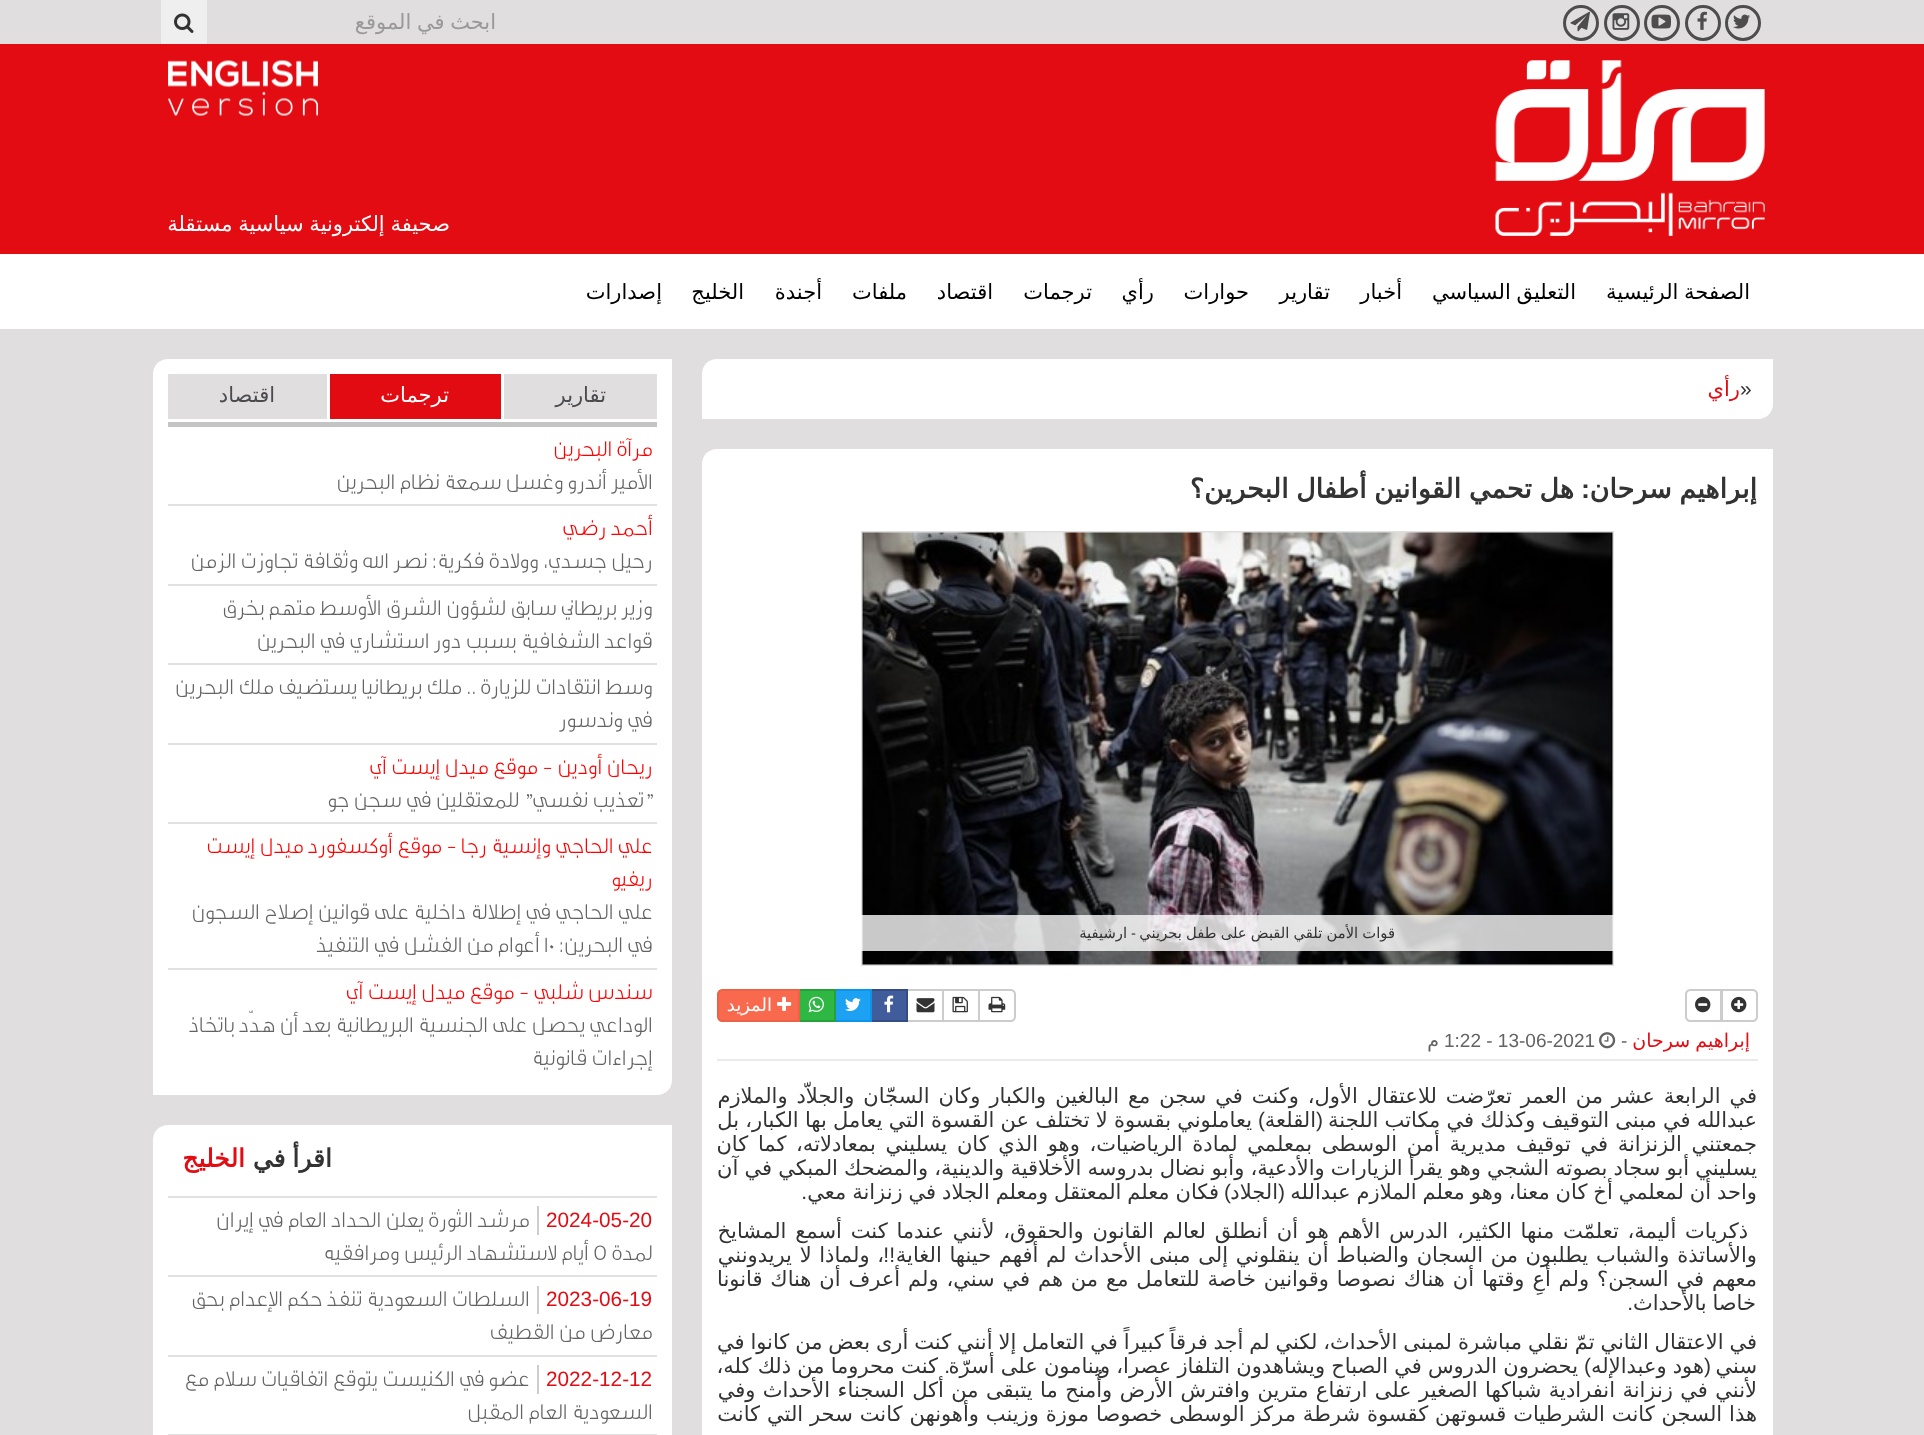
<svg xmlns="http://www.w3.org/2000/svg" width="1924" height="1435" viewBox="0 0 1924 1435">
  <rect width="100%" height="100%" fill="#e0dedf"/>
  <circle cx="1743" cy="23" r="16.5" fill="none" stroke="#4d4d4e" stroke-width="3"/>
  <image x="1733" y="14" width="17" height="15" href="img1.png"/>
  <circle cx="1703" cy="23" r="16.5" fill="none" stroke="#4d4d4e" stroke-width="3"/>
  <image x="1697" y="11" width="10" height="19" href="img2.png"/>
  <circle cx="1662" cy="23" r="16.5" fill="none" stroke="#4d4d4e" stroke-width="3"/>
  <image x="1651" y="14" width="20" height="15" href="img3.png"/>
  <circle cx="1622" cy="23" r="16.5" fill="none" stroke="#4d4d4e" stroke-width="3"/>
  <image x="1612" y="13" width="18" height="17" href="img4.png"/>
  <circle cx="1581" cy="23" r="16.5" fill="none" stroke="#4d4d4e" stroke-width="3"/>
  <image x="1570" y="11" width="20" height="21" href="img5.png"/>
  <text x="496" y="29" word-spacing="-1" font-family="DejaVu Sans" font-size="21" direction="rtl" fill="#999999">ابحث في الموقع</text>
  <rect x="161" y="0" width="46" height="44" fill="#efefef"/>
  <image x="174" y="13" width="20" height="20" href="img6.png"/>
  <rect x="0" y="44" width="1924" height="210" fill="#e30c13"/>
  <image x="1495" y="60" width="270" height="176" href="img7.png"/>
  <image x="168" y="60" width="150" height="56" href="img8.png"/>
  <text x="450" y="231" word-spacing="-1" font-family="DejaVu Sans" font-size="21" direction="rtl" fill="#ffffff">صحيفة إلكترونية سياسية مستقلة</text>
  <rect x="0" y="254" width="1924" height="75" fill="#ffffff"/>
  <text x="1750" y="299" word-spacing="-1" font-family="DejaVu Sans" font-size="21" direction="rtl" fill="#000000">الصفحة الرئيسية</text>
  <text x="1576" y="299" word-spacing="-1" font-family="DejaVu Sans" font-size="21" direction="rtl" fill="#000000">التعليق السياسي</text>
  <text x="1402" y="299" font-family="DejaVu Sans" font-size="21" direction="rtl" fill="#000000">أخبار</text>
  <text x="1330" y="299" font-family="DejaVu Sans" font-size="21" direction="rtl" fill="#000000">تقارير</text>
  <text x="1249" y="299" font-family="DejaVu Sans" font-size="21" direction="rtl" fill="#000000">حوارات</text>
  <text x="1154" y="299" font-family="DejaVu Sans" font-size="21" direction="rtl" fill="#000000">رأي</text>
  <text x="1092" y="299" font-family="DejaVu Sans" font-size="21" direction="rtl" fill="#000000">ترجمات</text>
  <text x="993" y="299" font-family="DejaVu Sans" font-size="21" direction="rtl" fill="#000000">اقتصاد</text>
  <text x="907" y="299" font-family="DejaVu Sans" font-size="21" direction="rtl" fill="#000000">ملفات</text>
  <text x="822" y="299" font-family="DejaVu Sans" font-size="21" direction="rtl" fill="#000000">أجندة</text>
  <text x="744" y="299" font-family="DejaVu Sans" font-size="21" direction="rtl" fill="#000000">الخليج</text>
  <text x="662" y="299" font-family="DejaVu Sans" font-size="21" direction="rtl" fill="#000000">إصدارات</text>
  <path d="M717 359H1773V404C1773 412.5 1766.5 419 1758 419H702V374C702 365.5 708.5 359 717 359Z" fill="#ffffff"/>
  <text x="1740" y="396" font-family="Liberation Sans" font-size="21" fill="#333333">»</text>
  <text x="1740" y="396" font-family="DejaVu Sans" font-size="21" direction="rtl" fill="#e30c13">رأي</text>
  <path d="M717 449H1773V1435C1773 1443.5 1766.5 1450 1758 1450H702V464C702 455.5 708.5 449 717 449Z" fill="#ffffff"/>
  <text x="1757" y="498" word-spacing="-1" font-family="DejaVu Sans" font-size="27" font-weight="bold" direction="rtl" fill="#333333">إبراهيم سرحان</text>
  <text x="1590" y="498" font-family="Liberation Sans" font-size="27" font-weight="bold" direction="rtl" fill="#333333">:</text>
  <text x="1574" y="498" word-spacing="-1" font-family="DejaVu Sans" font-size="27" font-weight="bold" direction="rtl" fill="#333333">هل تحمي القوانين أطفال البحرين؟</text>
  <rect x="862" y="532" width="751" height="433" fill="none" stroke="#dfdfdf" stroke-width="2"/>
  <image x="862" y="532" width="751" height="433" href="img9.png"/>
  <rect x="861" y="915" width="753" height="36" fill="#ffffff" fill-opacity="0.79"/>
  <text x="1395" y="938" word-spacing="-0.5" font-family="DejaVu Sans" font-size="14.75" direction="rtl" fill="#333333">قوات الأمن تلقي القبض على طفل بحريني</text>
  <text x="1136" y="938" font-family="Liberation Sans" font-size="14.75" direction="rtl" fill="#333333">-</text>
  <text x="1127" y="938" font-family="DejaVu Sans" font-size="14.75" direction="rtl" fill="#333333">ارشيفية</text>
  <path d="M1722 990H1753C1755 990 1757 992 1757 994V1017C1757 1019 1755 1021 1753 1021H1722Z" fill="none" stroke="#cccccc" stroke-width="2"/>
  <image x="1731" y="996" width="16" height="17" href="img10.png"/>
  <path d="M1690 990H1721V1021H1690C1688 1021 1686 1019 1686 1017V994C1686 992 1688 990 1690 990Z" fill="#ffffff" stroke="#cccccc" stroke-width="2"/>
  <image x="1695" y="996" width="16" height="17" href="img11.png"/>
  <path d="M979 990H1011C1013 990 1015 992 1015 994V1017C1015 1019 1013 1021 1011 1021H979Z" fill="none" stroke="#cccccc" stroke-width="2"/>
  <image x="988" y="996" width="18" height="17" href="img12.png"/>
  <rect x="943" y="990" width="36" height="31" fill="none" stroke="#cccccc" stroke-width="2"/>
  <image x="952" y="996" width="16" height="17" href="img13.png"/>
  <rect x="907" y="990" width="36" height="31" fill="none" stroke="#cccccc" stroke-width="2"/>
  <image x="916" y="998" width="19" height="15" href="img14.png"/>
  <rect x="871" y="990" width="36" height="31" fill="#405c9a" stroke="#334c83" stroke-width="2"/>
  <image x="884" y="995" width="10" height="18" href="img15.png"/>
  <rect x="835" y="990" width="36" height="31" fill="#1da1f2" stroke="#0c95e8" stroke-width="2"/>
  <image x="845" y="998" width="16" height="13" href="img16.png"/>
  <rect x="799" y="990" width="36" height="31" fill="#2eb743" stroke="#26a038" stroke-width="2"/>
  <image x="808" y="996" width="16" height="17" href="img17.png"/>
  <path d="M722 990H799V1021H722C720 1021 718 1019 718 1017V994C718 992 720 990 722 990Z" fill="#f8694d" stroke="#ea6349" stroke-width="2"/>
  <image x="777" y="996" width="15" height="15" href="img18.png"/>
  <text x="772" y="1011" font-family="DejaVu Sans" font-size="18" direction="rtl" fill="#ffffff">المزيد</text>
  <rect x="717" y="1059" width="1041" height="2" fill="#eaeaea"/>
  <text x="1750" y="1047" word-spacing="-1" font-family="DejaVu Sans" font-size="19" direction="rtl" fill="#e30c13">إبراهيم سرحان</text>
  <text x="1621" y="1047" font-family="Liberation Sans" font-size="19" fill="#636363">-</text>
  <image x="1599" y="1032" width="17" height="17" href="img19.png"/>
  <text x="1444" y="1047" font-family="Liberation Sans" font-size="19" fill="#636363">1:22 - 13-06-2021</text>
  <text x="1439" y="1047" font-family="DejaVu Sans" font-size="19" direction="rtl" fill="#636363">م</text>
  <text x="1757" y="1103" word-spacing="2.25" font-family="DejaVu Sans" font-size="21" direction="rtl" fill="#333333">في الرابعة عشر من العمر تعرّضت للاعتقال الأول، وكنت في سجن مع البالغين والكبار وكان السجّان والجلاّد والملازم</text>
  <text x="1757" y="1127" word-spacing="-0.5" font-family="DejaVu Sans" font-size="21" direction="rtl" fill="#333333">عبدالله في مبنى التوقيف وكذلك في مكاتب اللجنة</text>
  <text x="1323" y="1127" font-family="Liberation Sans" font-size="21" direction="rtl" fill="#333333">(</text>
  <text x="1316" y="1127" font-family="DejaVu Sans" font-size="21" direction="rtl" fill="#333333">القلعة</text>
  <text x="1265" y="1127" font-family="Liberation Sans" font-size="21" direction="rtl" fill="#333333">)</text>
  <text x="1252" y="1127" word-spacing="-0.5" font-family="DejaVu Sans" font-size="21" direction="rtl" fill="#333333">يعاملوني بقسوة لا تختلف عن القسوة التي يعامل بها الكبار، بل</text>
  <text x="1757" y="1151" word-spacing="3" font-family="DejaVu Sans" font-size="21" direction="rtl" fill="#333333">جمعتني الزنزانة في توقيف مديرية أمن الوسطى بمعلمي لمادة الرياضيات، وهو الذي كان يسليني بمعادلاته، كما كان</text>
  <text x="1757" y="1175" word-spacing="-0.5" font-family="DejaVu Sans" font-size="21" direction="rtl" fill="#333333">يسليني أبو سجاد بصوته الشجي وهو يقرأ الزيارات والأدعية، وأبو نضال بدروسه الأخلاقية والدينية، والمضحك المبكي في آن</text>
  <text x="1757" y="1199" word-spacing="-0.75" font-family="DejaVu Sans" font-size="21" direction="rtl" fill="#333333">واحد أن لمعلمي أخ كان معنا، وهو معلم الملازم عبدالله</text>
  <text x="1285" y="1199" font-family="Liberation Sans" font-size="21" direction="rtl" fill="#333333">(</text>
  <text x="1278" y="1199" font-family="DejaVu Sans" font-size="21" direction="rtl" fill="#333333">الجلاد</text>
  <text x="1231" y="1199" font-family="Liberation Sans" font-size="21" direction="rtl" fill="#333333">)</text>
  <text x="1219" y="1199" word-spacing="-0.75" font-family="DejaVu Sans" font-size="21" direction="rtl" fill="#333333">فكان معلم المعتقل ومعلم الجلاد في زنزانة معي</text>
  <text x="807" y="1199" font-family="Liberation Sans" font-size="21" direction="rtl" fill="#333333">.</text>
  <text x="1748" y="1238" word-spacing="2.1" font-family="DejaVu Sans" font-size="21" direction="rtl" fill="#333333">ذكريات أليمة، تعلمّت منها الكثير، الدرس الأهم هو أن أنطلق لعالم القانون والحقوق، لأنني عندما كنت أسمع المشايخ</text>
  <text x="1757" y="1262" word-spacing="1" font-family="DejaVu Sans" font-size="21" direction="rtl" fill="#333333">والأساتذة والشباب يطلبون من السجان والضباط أن ينقلوني إلى مبنى الأحداث لم أفهم حينها الغاية</text>
  <text x="895" y="1262" font-family="Liberation Sans" font-size="21" direction="rtl" fill="#333333">!!</text>
  <text x="884" y="1262" word-spacing="1" font-family="DejaVu Sans" font-size="21" direction="rtl" fill="#333333">، ولماذا لا يريدونني</text>
  <text x="1757" y="1286" word-spacing="1.2" font-family="DejaVu Sans" font-size="21" direction="rtl" fill="#333333">معهم في السجن؟ ولم أعِ وقتها أن هناك نصوصا وقوانين خاصة للتعامل مع من هم في سني، ولم أعرف أن هناك قانونا</text>
  <text x="1756" y="1310" word-spacing="-1" font-family="DejaVu Sans" font-size="21" direction="rtl" fill="#333333">خاصا بالأحداث</text>
  <text x="1633" y="1310" font-family="Liberation Sans" font-size="21" direction="rtl" fill="#333333">.</text>
  <text x="1757" y="1349" word-spacing="-0.8" font-family="DejaVu Sans" font-size="21" direction="rtl" fill="#333333">في الاعتقال الثاني تمّ نقلي مباشرة لمبنى الأحداث، لكني لم أجد فرقاً كبيراً في التعامل إلا أنني كنت أرى بعض من كانوا في</text>
  <text x="1757" y="1373" font-family="DejaVu Sans" font-size="21" direction="rtl" fill="#333333">سني</text>
  <text x="1711" y="1373" font-family="Liberation Sans" font-size="21" direction="rtl" fill="#333333">(</text>
  <text x="1704" y="1373" word-spacing="-0.5" font-family="DejaVu Sans" font-size="21" direction="rtl" fill="#333333">هود وعبدالإله</text>
  <text x="1591" y="1373" font-family="Liberation Sans" font-size="21" direction="rtl" fill="#333333">)</text>
  <text x="1578" y="1373" word-spacing="-0.5" font-family="DejaVu Sans" font-size="21" direction="rtl" fill="#333333">يحضرون الدروس في الصباح ويشاهدون التلفاز عصرا، وينامون على أسرّة</text>
  <text x="938" y="1373" word-spacing="-0.5" font-family="DejaVu Sans" font-size="21" direction="rtl" fill="#333333">كنت محروما من ذلك كله،</text>
  <text x="950" y="1373" font-family="Liberation Sans" font-size="21" direction="rtl" fill="#333333">.</text>
  <text x="1757" y="1397" word-spacing="0.75" font-family="DejaVu Sans" font-size="21" direction="rtl" fill="#333333">لأنني في زنزانة انفرادية شباكها الصغير على ارتفاع مترين وافترش الأرض وأُمنح ما يتبقى من أكل السجناء الأحداث وفي</text>
  <text x="1757" y="1421" word-spacing="0.25" font-family="DejaVu Sans" font-size="21" direction="rtl" fill="#333333">هذا السجن كانت الشرطيات قسوتهن كقسوة شرطة مركز الوسطى خصوصا موزة وزينب وأهونهن كانت سحر التي كانت</text>
  <path d="M168 359H672V1080C672 1088.5 665.5 1095 657 1095H153V374C153 365.5 159.5 359 168 359Z" fill="#ffffff"/>
  <rect x="168" y="422" width="489" height="5" fill="#c4c4c4"/>
  <rect x="504" y="374" width="153" height="45" fill="#e0dede"/>
  <text x="606" y="402" font-family="DejaVu Sans" font-size="21" direction="rtl" fill="#4b4b4e">تقارير</text>
  <rect x="330" y="374" width="171" height="45" fill="#e30b12"/>
  <text x="449" y="402" font-family="DejaVu Sans" font-size="21" direction="rtl" fill="#ffffff">ترجمات</text>
  <rect x="168" y="374" width="159" height="45" fill="#e0dede"/>
  <text x="275" y="402" font-family="DejaVu Sans" font-size="21" direction="rtl" fill="#4b4b4e">اقتصاد</text>
  <text x="653" y="456" font-family="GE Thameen" font-size="23.1" direction="rtl" fill="#ff0000">مرآة البحرين</text>
  <text x="653" y="489" font-family="GE Thameen" font-size="23.1" direction="rtl" fill="#636363">الأمير أندرو وغسل سمعة نظام البحرين</text>
  <rect x="168" y="504" width="489" height="2" fill="#e2e1e1"/>
  <text x="653" y="535" font-family="GE Thameen" font-size="23.1" direction="rtl" fill="#ff0000">أحمد رضي</text>
  <text x="653" y="568" font-family="GE Thameen" font-size="23.1" direction="rtl" fill="#636363">رحيل جسدي، وولادة فكرية: نصر الله وثقافة تجاوزت الزمن</text>
  <rect x="168" y="584" width="489" height="2" fill="#e2e1e1"/>
  <text x="653" y="615" font-family="GE Thameen" font-size="23.1" direction="rtl" fill="#636363">وزير بريطاني سابق لشؤون الشرق الأوسط متهم بخرق</text>
  <text x="653" y="648" font-family="GE Thameen" font-size="23.1" direction="rtl" fill="#636363">قواعد الشفافية بسبب دور استشاري في البحرين</text>
  <rect x="168" y="663" width="489" height="2" fill="#e2e1e1"/>
  <text x="653" y="694" font-family="GE Thameen" font-size="23.1" direction="rtl" fill="#636363">وسط انتقادات للزيارة .. ملك بريطانيا يستضيف ملك البحرين</text>
  <text x="653" y="727" font-family="GE Thameen" font-size="23.1" direction="rtl" fill="#636363">في وندسور</text>
  <rect x="168" y="743" width="489" height="2" fill="#e2e1e1"/>
  <text x="653" y="774" font-family="GE Thameen" font-size="23.1" direction="rtl" fill="#ff0000">ريحان أودين</text>
  <text x="553" y="774" font-family="GE Thameen" font-size="23.1" direction="rtl" fill="#ff0000">- موقع ميدل إيست آي</text>
  <text x="653" y="807" font-family="GE Thameen" font-size="23.1" direction="rtl" fill="#636363">"تعذيب نفسي" للمعتقلين في سجن جو</text>
  <rect x="168" y="822" width="489" height="2" fill="#e2e1e1"/>
  <text x="653" y="853" font-family="GE Thameen" font-size="23.1" direction="rtl" fill="#ff0000">علي الحاجي وإنسية رجا - موقع أوكسفورد ميدل إيست</text>
  <text x="653" y="886" font-family="GE Thameen" font-size="23.1" direction="rtl" fill="#ff0000">ريفيو</text>
  <text x="653" y="919" font-family="GE Thameen" font-size="23.1" direction="rtl" fill="#636363">علي الحاجي في إطلالة داخلية على قوانين إصلاح السجون</text>
  <text x="653" y="952" font-family="GE Thameen" font-size="23.1" direction="rtl" fill="#636363">في البحرين:</text>
  <text x="544" y="952" font-family="GE Thameen" font-size="23.1" fill="#636363">10</text>
  <text x="540" y="952" font-family="GE Thameen" font-size="23.1" direction="rtl" fill="#636363">أعوام من الفشل في التنفيذ</text>
  <rect x="168" y="968" width="489" height="2" fill="#e2e1e1"/>
  <text x="653" y="999" font-family="GE Thameen" font-size="23.1" direction="rtl" fill="#ff0000">سندس شلبي - موقع ميدل إيست آي</text>
  <text x="653" y="1032" font-family="GE Thameen" font-size="23.1" direction="rtl" fill="#636363">الوداعي يحصل على الجنسية البريطانية بعد أن هدّد باتخاذ</text>
  <text x="653" y="1065" font-family="GE Thameen" font-size="23.1" direction="rtl" fill="#636363">إجراءات قانونية</text>
  <path d="M168 1125H672V1435C672 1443.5 665.5 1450 657 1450H153V1140C153 1131.5 159.5 1125 168 1125Z" fill="#ffffff"/>
  <text x="332" y="1167" word-spacing="-1" font-family="DejaVu Sans" font-size="25" font-weight="bold" direction="rtl" fill="#333333">اقرأ في</text>
  <text x="245" y="1167" font-family="DejaVu Sans" font-size="25" font-weight="bold" direction="rtl" fill="#e30c13">الخليج</text>
  <rect x="168" y="1196" width="489" height="2" fill="#e2e1e1"/>
  <rect x="537" y="1206" width="2" height="29" fill="#cdcdcd"/>
  <text x="546" y="1227" font-family="Liberation Sans" font-size="20.75" fill="#e30c13">2024-05-20</text>
  <text x="530" y="1227" font-family="GE Thameen" font-size="23.1" direction="rtl" fill="#636363">مرشد الثورة يعلن الحداد العام في إيران</text>
  <text x="653" y="1260" font-family="GE Thameen" font-size="23.1" direction="rtl" fill="#636363">لمدة</text>
  <text x="593" y="1260" font-family="GE Thameen" font-size="23.1" fill="#636363">5</text>
  <text x="589" y="1260" font-family="GE Thameen" font-size="23.1" direction="rtl" fill="#636363">أيام لاستشهاد الرئيس ومرافقيه</text>
  <rect x="168" y="1275" width="489" height="2" fill="#e2e1e1"/>
  <rect x="537" y="1286" width="2" height="28" fill="#cdcdcd"/>
  <text x="546" y="1306" font-family="Liberation Sans" font-size="20.75" fill="#e30c13">2023-06-19</text>
  <text x="530" y="1306" font-family="GE Thameen" font-size="23.1" direction="rtl" fill="#636363">السلطات السعودية تنفذ حكم الإعدام بحق</text>
  <text x="653" y="1339" font-family="GE Thameen" font-size="23.1" direction="rtl" fill="#636363">معارض من القطيف</text>
  <rect x="168" y="1355" width="489" height="2" fill="#e2e1e1"/>
  <rect x="537" y="1365" width="2" height="29" fill="#cdcdcd"/>
  <text x="546" y="1386" font-family="Liberation Sans" font-size="20.75" fill="#e30c13">2022-12-12</text>
  <text x="530" y="1386" font-family="GE Thameen" font-size="23.1" direction="rtl" fill="#636363">عضو في الكنيست يتوقع اتفاقيات سلام مع</text>
  <text x="653" y="1419" font-family="GE Thameen" font-size="23.1" direction="rtl" fill="#636363">السعودية العام المقبل</text>
  <rect x="168" y="1434" width="489" height="1" fill="#e2e1e1"/>
</svg>
